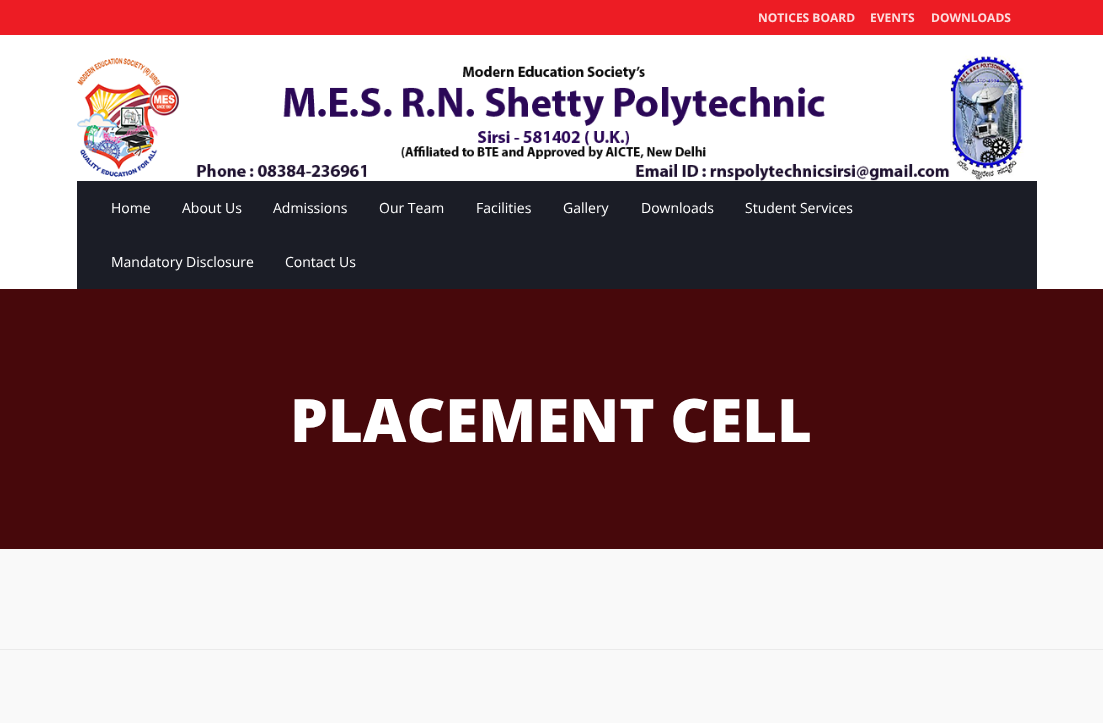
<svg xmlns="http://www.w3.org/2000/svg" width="1103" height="723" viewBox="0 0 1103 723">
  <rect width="100%" height="100%" fill="#f9f9f9"/>
  <rect x="0" y="0" width="1103" height="35" fill="#ed1c24"/>
  <text x="758" y="22" font-family="Open Sans" font-size="12" font-weight="bold" fill="#fcddde">NOTICES BOARD</text>
  <text x="870" y="22" font-family="Open Sans" font-size="12" font-weight="bold" fill="#fcddde">EVENTS</text>
  <text x="931" y="22" font-family="Open Sans" font-size="12" font-weight="bold" fill="#fcddde">DOWNLOADS</text>
  <rect x="0" y="35" width="1103" height="254" fill="#ffffff"/>
  <image x="77" y="55" width="947" height="126" href="img1.png"/>
  <rect x="77" y="181" width="960" height="108" fill="#1b1d26"/>
  <text x="111" y="213" font-family="Open Sans" font-size="14" fill="#ffffff">Home</text>
  <text x="182" y="213" font-family="Open Sans" font-size="14" fill="#ffffff">About Us</text>
  <text x="273" y="213" font-family="Open Sans" font-size="14" fill="#ffffff">Admissions</text>
  <text x="379" y="213" font-family="Open Sans" font-size="14" fill="#ffffff">Our Team</text>
  <text x="476" y="213" font-family="Open Sans" font-size="14" fill="#ffffff">Facilities</text>
  <text x="563" y="213" font-family="Open Sans" font-size="14" fill="#ffffff">Gallery</text>
  <text x="641" y="213" font-family="Open Sans" font-size="14" fill="#ffffff">Downloads</text>
  <text x="745" y="213" font-family="Open Sans" font-size="14" fill="#ffffff">Student Services</text>
  <text x="111" y="267" font-family="Open Sans" font-size="14" fill="#ffffff">Mandatory Disclosure</text>
  <text x="285" y="267" font-family="Open Sans" font-size="14" fill="#ffffff">Contact Us</text>
  <rect x="0" y="289" width="1103" height="260" fill="#47080b"/>
  <text x="290" y="442" font-family="Open Sans" font-size="60" font-weight="800" fill="#ffffff">PLACEMENT CELL</text>
  <rect x="0" y="649" width="1103" height="1" fill="#eaeaea"/>
</svg>
